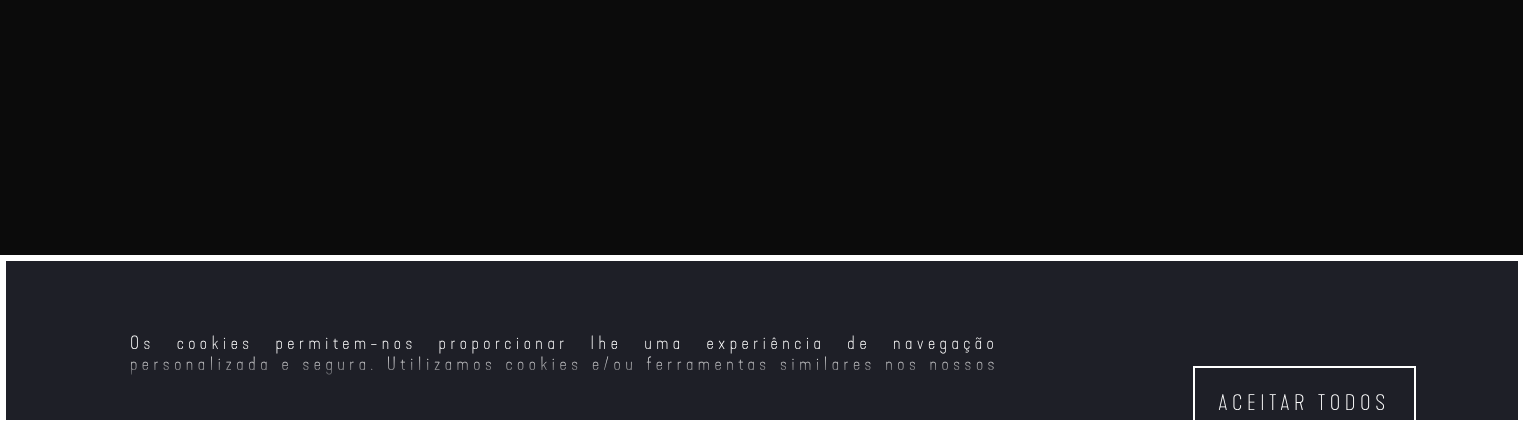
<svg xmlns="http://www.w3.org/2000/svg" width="1523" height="426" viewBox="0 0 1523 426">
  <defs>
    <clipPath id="clip1"><rect x="131" y="332" width="937" height="45"/></clipPath>
    <linearGradient id="g1" gradientUnits="userSpaceOnUse" x1="556" y1="400" x2="556" y2="355"><stop offset="0" stop-color="#1e1f27"/><stop offset="0.5" stop-color="#1e1f27" stop-opacity="0.8"/><stop offset="1" stop-color="#1e1f27" stop-opacity="0"/></linearGradient>
    <clipPath id="clip2"><rect x="1091" y="309" width="427" height="111"/></clipPath>
  </defs>
  <rect width="100%" height="100%" fill="#0b0b0b"/>
  <rect x="3" y="258" width="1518" height="165" fill="#1e1f27" stroke="#ffffff" stroke-width="6"/>
  <text x="130" y="349" word-spacing="13.75" font-family="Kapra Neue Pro" font-size="18" font-weight="100" letter-spacing="4.5" fill="#ffffff">Os cookies permitem-nos proporcionar lhe uma experiência de navegação</text>
  <g clip-path="url(#clip1)">
    <text x="130" y="370" word-spacing="1.25" font-family="Kapra Neue Pro" font-size="18" font-weight="100" letter-spacing="4.5" fill="#ffffff">personalizada e segura. Utilizamos cookies e/ou ferramentas similares nos nossos</text>
  </g>
  <rect x="131" y="356" width="862" height="19" fill="url(#g1)"/>
  <g clip-path="url(#clip2)">
    <rect x="1194" y="367" width="221" height="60" fill="none" stroke="#ffffff" stroke-width="2"/>
  </g>
  <text x="1218" y="410" font-family="Kapra Neue Pro" font-size="21" font-weight="100" letter-spacing="4.5" fill="#ffffff">ACEITAR TODOS</text>
</svg>
